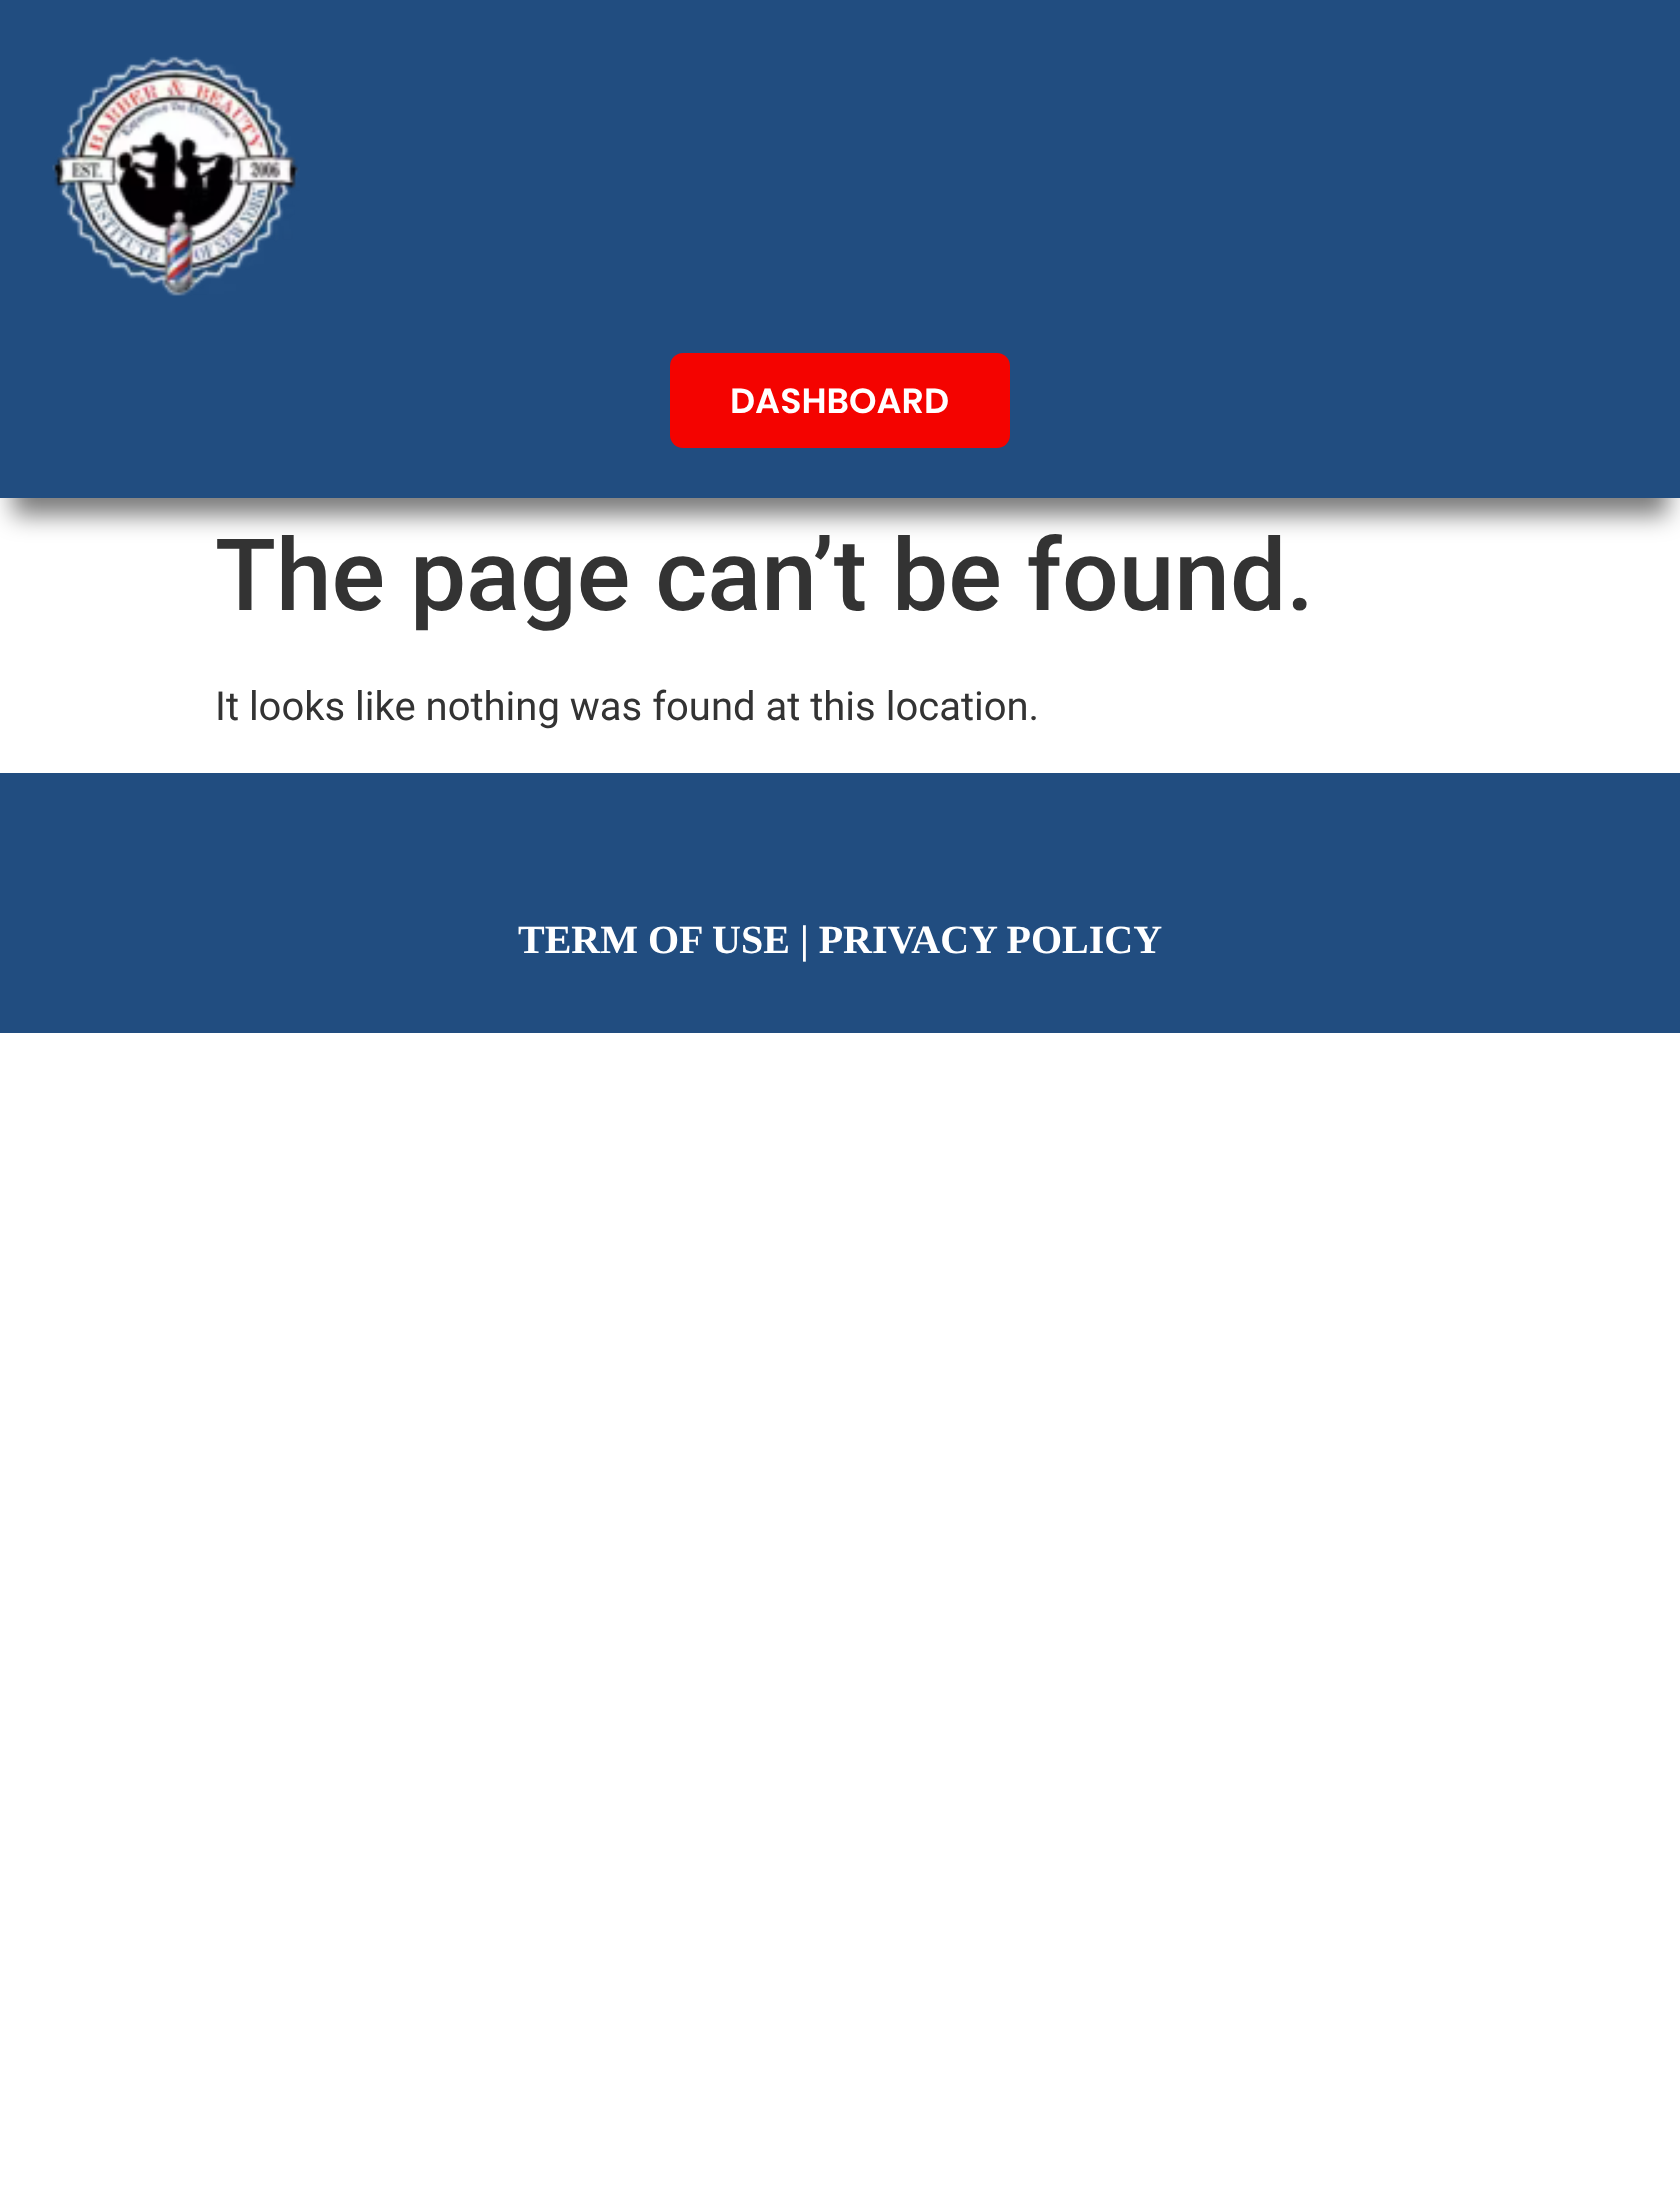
<svg xmlns="http://www.w3.org/2000/svg" width="1680" height="2200" viewBox="0 0 1680 2200">
  <defs>
    <filter id="blur1" x="-50%" y="-200%" width="200%" height="500%"><feGaussianBlur stdDeviation="12.5"/></filter>
  </defs>
  <rect width="100%" height="100%" fill="#ffffff"/>
  <rect x="13" y="43" width="1655" height="472" fill="#000000" fill-opacity="0.52" filter="url(#blur1)"/>
  <rect x="0" y="0" width="1680" height="498" fill="#214d80"/>
  <image x="52" y="55" width="248" height="241" href="img1.png"/>
  <rect x="670" y="353" width="340" height="95" rx="13" fill="#f40300"/>
  <text x="730" y="413" font-family="Poppins" font-size="35" font-weight="600" fill="#ffffff">DASHBOARD</text>
  <text x="215" y="610" font-family="Roboto" font-size="100" font-weight="500" fill="#333333">The page can’t be found.</text>
  <text x="215" y="720" font-family="Roboto" font-size="40" fill="#333333">It looks like nothing was found at this location.</text>
  <rect x="0" y="773" width="1680" height="260" fill="#214d80"/>
  <text x="518" y="953" font-family="Liberation Serif" font-size="40" font-weight="bold" fill="#ffffff">TERM OF USE | PRIVACY POLICY</text>
</svg>
